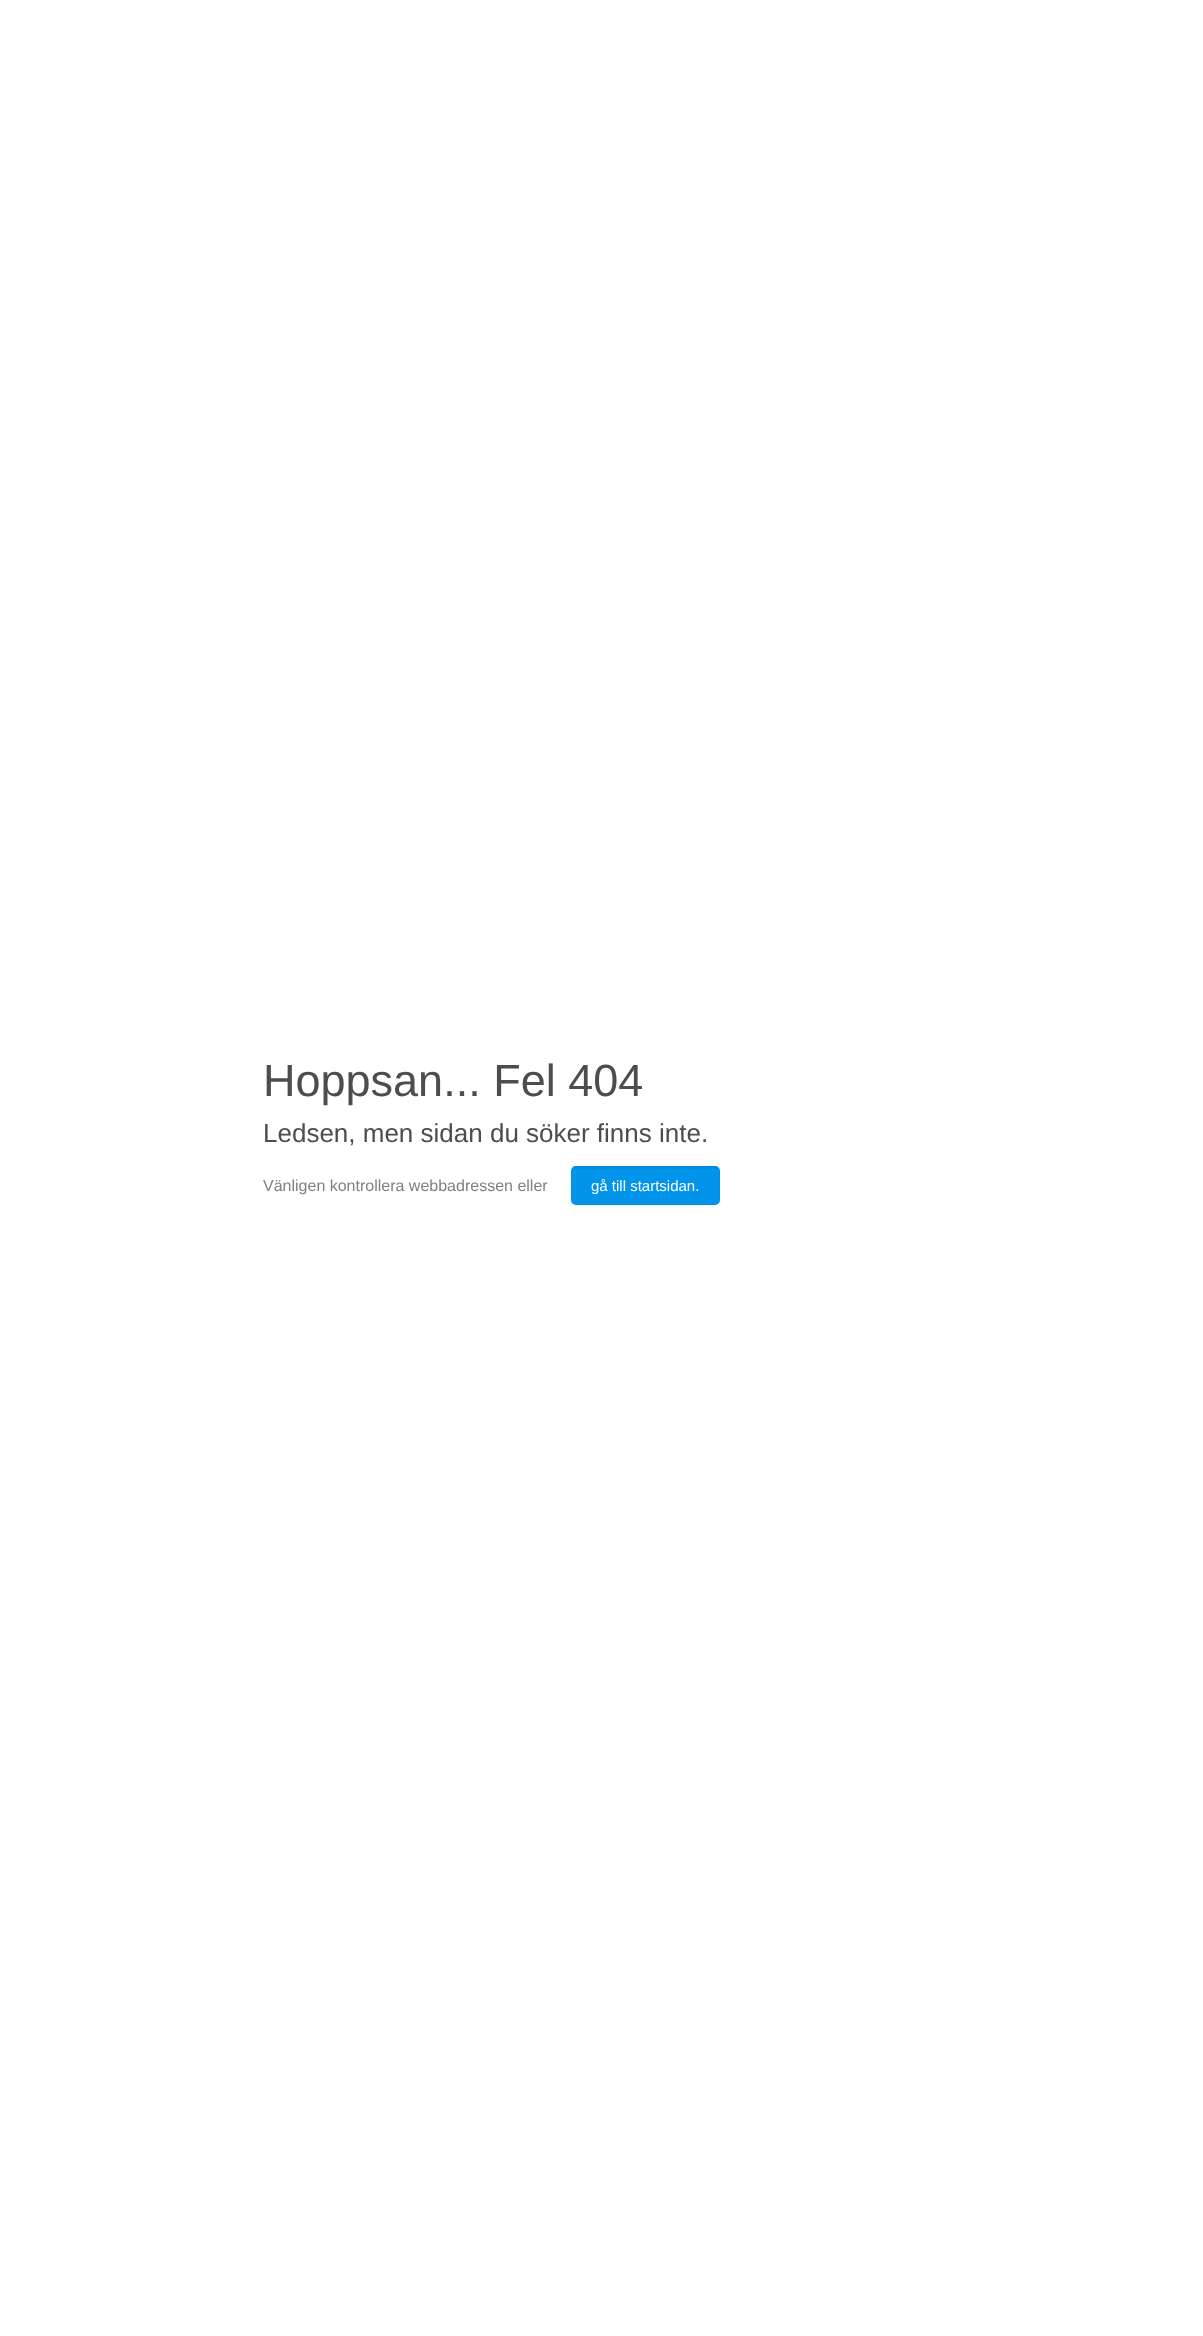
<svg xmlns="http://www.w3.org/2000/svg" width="1203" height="2336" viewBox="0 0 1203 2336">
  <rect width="100%" height="100%" fill="#ffffff"/>
  <text x="263" y="1096" font-family="Liberation Sans" font-size="45" fill="#4d4d4d">Hoppsan... Fel 404</text>
  <text x="263" y="1142" font-family="Liberation Sans" font-size="26" fill="#4d4d4d">Ledsen, men sidan du söker finns inte.</text>
  <text x="263" y="1191" font-family="Liberation Sans" font-size="16" fill="#808080">Vänligen kontrollera webbadressen eller</text>
  <rect x="571" y="1166" width="149" height="39" rx="5" fill="#0095eb"/>
  <rect x="572" y="1166" width="147" height="3" fill="#000000" fill-opacity="0.05"/>
  <rect x="571.5" y="1166.5" width="148" height="38" fill="none" stroke="#000000" stroke-opacity="0.03"/>
  <text x="591" y="1191" font-family="Liberation Sans" font-size="15" fill="#ffffff">gå till startsidan.</text>
</svg>
